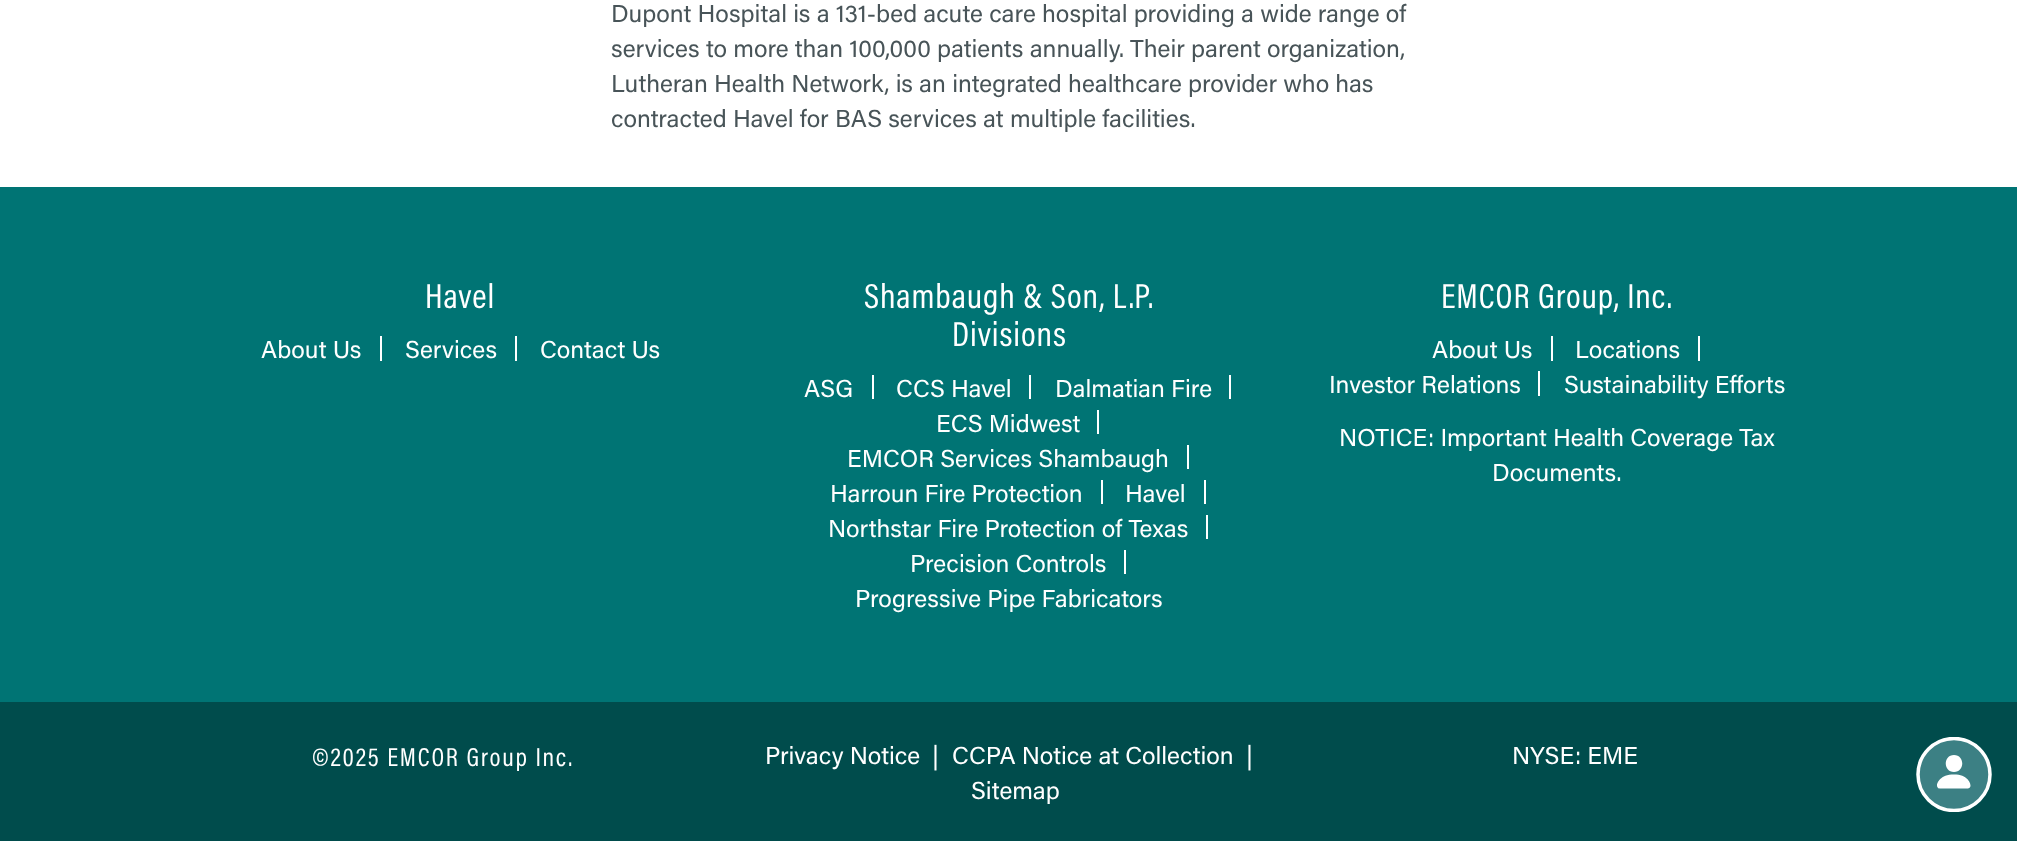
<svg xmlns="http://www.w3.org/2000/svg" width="2017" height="841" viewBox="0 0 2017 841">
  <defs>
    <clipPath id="clip1"><rect x="1916" y="737" width="76" height="75"/></clipPath>
  </defs>
  <rect width="100%" height="100%" fill="#ffffff"/>
  <text x="611" y="22" font-family="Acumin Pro" font-size="24.5" fill="#485458">Dupont Hospital is a 131-bed acute care hospital providing a wide range of</text>
  <text x="611" y="57" font-family="Acumin Pro" font-size="24.5" fill="#485458">services to more than 100,000 patients annually. Their parent organization,</text>
  <text x="611" y="92" font-family="Acumin Pro" font-size="24.5" fill="#485458">Lutheran Health Network, is an integrated healthcare provider who has</text>
  <text x="611" y="127" font-family="Acumin Pro" font-size="24.5" fill="#485458">contracted Havel for BAS services at multiple facilities.</text>
  <rect x="0" y="187" width="2017" height="515" fill="#007474"/>
  <text x="425" y="308" font-family="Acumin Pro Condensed" font-size="35" letter-spacing="0.9" fill="#ffffff">Havel</text>
  <rect x="380" y="336" width="2" height="25" fill="#ffffff"/>
  <text x="261" y="358" font-family="Acumin Pro" font-size="24.5" fill="#ffffff">About Us</text>
  <rect x="515" y="336" width="2" height="25" fill="#ffffff"/>
  <text x="405" y="358" font-family="Acumin Pro" font-size="24.5" fill="#ffffff">Services</text>
  <text x="540" y="358" font-family="Acumin Pro" font-size="24.5" fill="#ffffff">Contact Us</text>
  <text x="864" y="308" font-family="Acumin Pro Condensed" font-size="35" letter-spacing="0.9" fill="#ffffff">Shambaugh &amp; Son, L.P.</text>
  <text x="952" y="346" font-family="Acumin Pro Condensed" font-size="35" letter-spacing="0.9" fill="#ffffff">Divisions</text>
  <rect x="872" y="375" width="2" height="24" fill="#ffffff"/>
  <text x="804" y="397" font-family="Acumin Pro" font-size="24.5" fill="#ffffff">ASG</text>
  <rect x="1029" y="375" width="2" height="24" fill="#ffffff"/>
  <text x="896" y="397" font-family="Acumin Pro" font-size="24.5" fill="#ffffff">CCS Havel</text>
  <rect x="1229" y="375" width="2" height="24" fill="#ffffff"/>
  <text x="1055" y="397" font-family="Acumin Pro" font-size="24.5" fill="#ffffff">Dalmatian Fire</text>
  <rect x="1097" y="410" width="2" height="24" fill="#ffffff"/>
  <text x="936" y="432" font-family="Acumin Pro" font-size="24.5" fill="#ffffff">ECS Midwest</text>
  <rect x="1187" y="445" width="2" height="24" fill="#ffffff"/>
  <text x="847" y="467" font-family="Acumin Pro" font-size="24.5" fill="#ffffff">EMCOR Services Shambaugh</text>
  <rect x="1101" y="480" width="2" height="24" fill="#ffffff"/>
  <text x="830" y="502" font-family="Acumin Pro" font-size="24.5" fill="#ffffff">Harroun Fire Protection</text>
  <rect x="1204" y="480" width="2" height="24" fill="#ffffff"/>
  <text x="1125" y="502" font-family="Acumin Pro" font-size="24.5" fill="#ffffff">Havel</text>
  <rect x="1206" y="515" width="2" height="24" fill="#ffffff"/>
  <text x="828" y="537" font-family="Acumin Pro" font-size="24.5" fill="#ffffff">Northstar Fire Protection of Texas</text>
  <rect x="1124" y="550" width="2" height="24" fill="#ffffff"/>
  <text x="910" y="572" font-family="Acumin Pro" font-size="24.5" fill="#ffffff">Precision Controls</text>
  <text x="855" y="607" font-family="Acumin Pro" font-size="24.5" fill="#ffffff">Progressive Pipe Fabricators</text>
  <text x="1441" y="308" font-family="Acumin Pro Condensed" font-size="35" letter-spacing="0.9" fill="#ffffff">EMCOR Group, Inc.</text>
  <rect x="1551" y="336" width="2" height="25" fill="#ffffff"/>
  <text x="1432" y="358" font-family="Acumin Pro" font-size="24.5" fill="#ffffff">About Us</text>
  <rect x="1698" y="336" width="2" height="25" fill="#ffffff"/>
  <text x="1575" y="358" font-family="Acumin Pro" font-size="24.5" fill="#ffffff">Locations</text>
  <rect x="1538" y="371" width="2" height="25" fill="#ffffff"/>
  <text x="1329" y="393" font-family="Acumin Pro" font-size="24.5" fill="#ffffff">Investor Relations</text>
  <text x="1564" y="393" font-family="Acumin Pro" font-size="24.5" fill="#ffffff">Sustainability Efforts</text>
  <text x="1339" y="446" font-family="Acumin Pro" font-size="24.5" fill="#ffffff">NOTICE: Important Health Coverage Tax</text>
  <text x="1492" y="481" font-family="Acumin Pro" font-size="24.5" fill="#ffffff">Documents.</text>
  <rect x="0" y="702" width="2017" height="139" fill="#004c4c"/>
  <text x="312" y="766" font-family="Acumin Pro Condensed" font-size="26.25" letter-spacing="1.75" fill="#ffffff">©2025 EMCOR Group Inc.</text>
  <text x="765" y="764" font-family="Acumin Pro" font-size="24.5" fill="#ffffff">Privacy Notice</text>
  <text x="932" y="764" font-family="Acumin Pro" font-size="24.5" fill="#ffffff">|</text>
  <text x="952" y="764" font-family="Acumin Pro" font-size="24.5" fill="#ffffff">CCPA Notice at Collection</text>
  <text x="1246" y="764" font-family="Acumin Pro" font-size="24.5" fill="#ffffff">|</text>
  <text x="971" y="799" font-family="Acumin Pro" font-size="24.5" fill="#ffffff">Sitemap</text>
  <text x="1512" y="764" font-family="Acumin Pro" font-size="24.5" fill="#ffffff">NYSE: EME</text>
  <circle cx="1954" cy="774.5" r="36" fill="#3c8084"/>
  <g clip-path="url(#clip1)">
    <circle cx="1954" cy="774.5" r="36" fill="none" stroke="#ffffff" stroke-width="3.5"/>
  </g>
  <path d="M1940 788.5C1940 788.5 1937 788.5 1937 785.5C1937 783 1940 774.5 1954 774.5C1967.5 774.5 1970.5 783 1970.5 785.5C1970.5 788.5 1967.5 788.5 1967.5 788.5ZM1954 772C1965 772 1965 755 1954 755C1943 755 1943 772 1954 772Z" fill="#ffffff"/>
</svg>
